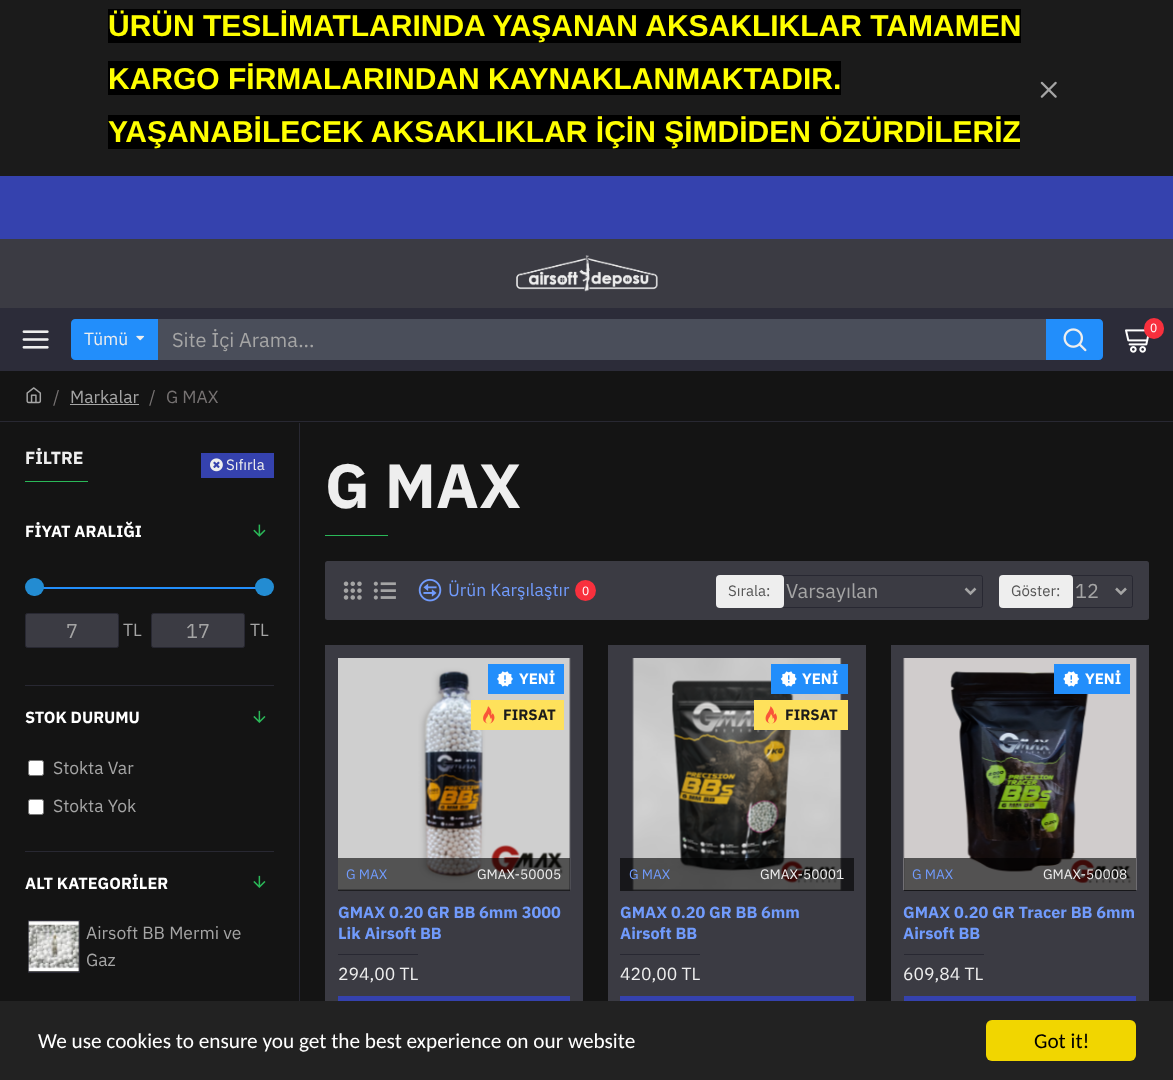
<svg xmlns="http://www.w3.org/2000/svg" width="1173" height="1080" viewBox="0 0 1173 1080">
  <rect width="100%" height="100%" fill="#141414"/>
  <rect x="0" y="0" width="1173" height="176" fill="#1b1b1b"/>
  <rect x="108" y="9" width="913" height="34" fill="#000000"/>
  <text x="108" y="36" font-family="Liberation Sans" font-size="30" font-weight="bold" fill="#ffff00">ÜRÜN TESLİMATLARINDA YAŞANAN AKSAKLIKLAR TAMAMEN</text>
  <rect x="108" y="61" width="733" height="34" fill="#000000"/>
  <text x="108" y="89" font-family="Liberation Sans" font-size="30" font-weight="bold" fill="#ffff00">KARGO FİRMALARINDAN KAYNAKLANMAKTADIR.</text>
  <rect x="108" y="115" width="912" height="34" fill="#000000"/>
  <text x="108" y="142" font-family="Liberation Sans" font-size="30" font-weight="bold" fill="#ffff00">YAŞANABİLECEK AKSAKLIKLAR İÇİN ŞİMDİDEN ÖZÜRDİLERİZ</text>
  <image x="1040" y="81" width="17" height="17" href="img1.png"/>
  <rect x="0" y="176" width="1173" height="63" fill="#3542ae"/>
  <rect x="0" y="239" width="1173" height="69" fill="#3b3b43"/>
  <image x="516" y="255" width="142" height="37" href="img2.png"/>
  <rect x="0" y="308" width="1173" height="63" fill="#2c2c39"/>
  <image x="1125" y="329" width="24" height="24" href="img3.png"/>
  <rect x="1144" y="318" width="20" height="21" rx="10" fill="#f8303d"/>
  <text x="1150" y="332" font-family="IBM Plex Sans" font-size="12" fill="#ffffff">0</text>
  <image x="22" y="330" width="27" height="19" href="img4.png"/>
  <path d="M75 319H158V360H75C73 360 71 358 71 356V323C71 321 73 319 75 319Z" fill="#228efb"/>
  <text x="84" y="345" font-family="IBM Plex Sans" font-size="17.5" fill="#eeeeee">Tümü</text>
  <image x="136" y="335" width="9" height="6" href="img5.png"/>
  <rect x="158" y="319" width="888" height="41" fill="#4a4e5a"/>
  <text x="172" y="347" font-family="IBM Plex Sans" font-size="20" fill="#a5a5a5">Site İçi Arama...</text>
  <path d="M1046 319H1099C1101 319 1103 321 1103 323V356C1103 358 1101 360 1099 360H1046Z" fill="#228efb"/>
  <image x="1063" y="328" width="24" height="24" href="img6.png"/>
  <image x="26" y="387" width="16" height="17" href="img7.png"/>
  <text x="53" y="403" font-family="IBM Plex Sans" font-size="17.5" fill="#767272">/</text>
  <text x="70" y="403" font-family="IBM Plex Sans" font-size="17.5" fill="#a5a5a5">Markalar</text>
  <rect x="70" y="404" width="69" height="1" fill="#a5a5a5"/>
  <text x="149" y="403" font-family="IBM Plex Sans" font-size="17.5" fill="#767272">/</text>
  <text x="166" y="403" font-family="IBM Plex Sans" font-size="17.5" fill="#767272">G MAX</text>
  <rect x="0" y="421" width="1173" height="1" fill="#282832"/>
  <rect x="299" y="423" width="1" height="578" fill="#282832"/>
  <text x="25" y="464" font-family="IBM Plex Sans" font-size="17.5" font-weight="bold" fill="#eeeeee">FİLTRE</text>
  <rect x="201" y="453" width="73" height="25" fill="#3542ae"/>
  <image x="210" y="458" width="13" height="14" href="img8.png"/>
  <text x="226" y="470" font-family="IBM Plex Sans" font-size="15" fill="#eeeeee">Sıfırla</text>
  <rect x="25" y="481" width="63" height="1" fill="#2ab858"/>
  <text x="25" y="537" font-family="IBM Plex Sans" font-size="16.25" font-weight="bold" fill="#ffffff">FİYAT ARALIĞI</text>
  <image x="253" y="524" width="13" height="13" href="img9.png"/>
  <path d="M41 587H259L265 588H263L259 589H41L35 588H37Z" fill="#228efb"/>
  <rect x="25" y="578" width="19" height="18" rx="9" fill="#238cd2"/>
  <rect x="255" y="578" width="19" height="18" rx="9" fill="#238cd2"/>
  <rect x="25.5" y="613.5" width="93" height="34" rx="2" fill="#3b3b43" stroke="#282832"/>
  <text x="66" y="638" font-family="IBM Plex Sans" font-size="20" fill="#a5a5a5">7</text>
  <text x="123" y="636" font-family="IBM Plex Sans" font-size="17.5" fill="#a5a5a5">TL</text>
  <rect x="151.5" y="613.5" width="93" height="34" rx="2" fill="#3b3b43" stroke="#282832"/>
  <text x="186" y="638" font-family="IBM Plex Sans" font-size="20" fill="#a5a5a5">17</text>
  <text x="250" y="636" font-family="IBM Plex Sans" font-size="17.5" fill="#a5a5a5">TL</text>
  <rect x="25" y="685" width="249" height="1" fill="#282832"/>
  <text x="25" y="723" font-family="IBM Plex Sans" font-size="16.25" font-weight="bold" fill="#ffffff">STOK DURUMU</text>
  <image x="253" y="710" width="13" height="13" href="img10.png"/>
  <rect x="28.5" y="760.5" width="15" height="15" rx="2" fill="#ffffff" stroke="#767676"/>
  <text x="53" y="774" font-family="IBM Plex Sans" font-size="17.5" fill="#a5a5a5">Stokta Var</text>
  <rect x="28.5" y="799.5" width="15" height="15" rx="2" fill="#ffffff" stroke="#767676"/>
  <text x="53" y="812" font-family="IBM Plex Sans" font-size="17.5" fill="#a5a5a5">Stokta Yok</text>
  <rect x="25" y="851" width="249" height="1" fill="#282832"/>
  <text x="25" y="889" font-family="IBM Plex Sans" font-size="16.25" font-weight="bold" fill="#ffffff">ALT KATEGORİLER</text>
  <image x="253" y="875" width="13" height="13" href="img10.png"/>
  <rect x="28.5" y="920.5" width="51" height="52" fill="none" stroke="#282832"/>
  <image x="28" y="921" width="52" height="51" href="img11.png"/>
  <text x="86" y="939" font-family="IBM Plex Sans" font-size="17.5" fill="#a5a5a5">Airsoft BB Mermi ve</text>
  <text x="86" y="966" font-family="IBM Plex Sans" font-size="17.5" fill="#a5a5a5">Gaz</text>
  <text x="325" y="508" font-family="IBM Plex Sans" font-size="62.5" font-weight="bold" fill="#eeeeee">G MAX</text>
  <rect x="325" y="535" width="63" height="1" fill="#2ab858"/>
  <rect x="325" y="561" width="824" height="59" rx="2.5" fill="#3b3b43"/>
  <image x="343" y="581" width="19" height="19" href="img12.png"/>
  <image x="373" y="581" width="23" height="19" href="img13.png"/>
  <image x="418" y="578" width="24" height="24" href="img14.png"/>
  <text x="448" y="596" font-family="IBM Plex Sans" font-size="17.5" fill="#719bfc">Ürün Karşılaştır</text>
  <circle cx="585.5" cy="590.5" r="10.5" fill="#f8303d"/>
  <text x="582" y="595" font-family="IBM Plex Sans" font-size="12" fill="#ffffff">0</text>
  <rect x="780.5" y="575.5" width="202" height="32" rx="2" fill="none" stroke="#282832"/>
  <rect x="716" y="575" width="68" height="33" rx="4" fill="#eeeeee"/>
  <text x="728" y="596" font-family="IBM Plex Sans" font-size="15" fill="#555555">Sırala:</text>
  <path d="M965.5 588.5L970.5 593.5L975.5 588.5" fill="none" stroke="#a5a5a5" stroke-width="2.5"/>
  <text x="786" y="598" font-family="IBM Plex Sans" font-size="20" fill="#a5a5a5">Varsayılan</text>
  <rect x="1069.5" y="575.5" width="63" height="32" rx="2" fill="none" stroke="#282832"/>
  <rect x="999" y="575" width="74" height="33" rx="4" fill="#eeeeee"/>
  <text x="1011" y="596" font-family="IBM Plex Sans" font-size="15" fill="#555555">Göster:</text>
  <path d="M1116 588.5L1121 593.5L1126 588.5" fill="none" stroke="#a5a5a5" stroke-width="2.5"/>
  <text x="1075" y="598" font-family="IBM Plex Sans" font-size="20" fill="#a5a5a5">12</text>
  <rect x="325" y="645" width="258" height="356" fill="#3b3b43"/>
  <image x="338" y="658" width="233" height="233" href="img15.png"/>
  <rect x="488" y="664" width="76" height="30" fill="#228efb"/>
  <image x="497" y="671" width="16" height="16" href="img16.png"/>
  <text x="519" y="684" font-family="IBM Plex Sans" font-size="15" font-weight="bold" fill="#ffffff">YENİ</text>
  <rect x="471" y="700" width="93" height="30" fill="#fee15b"/>
  <image x="483" y="706" width="12" height="18" href="img17.png"/>
  <text x="503" y="720" font-family="IBM Plex Sans" font-size="15" font-weight="bold" fill="#1b1b1b">FIRSAT</text>
  <rect x="338" y="858" width="232" height="33" fill="#000000" fill-opacity="0.6"/>
  <text x="346" y="879" font-family="IBM Plex Sans" font-size="13.75" fill="#719bfc">G MAX</text>
  <text x="477" y="879" font-family="IBM Plex Sans" font-size="13.75" fill="#eeeeee">GMAX-50005</text>
  <text x="338" y="918" font-family="IBM Plex Sans" font-size="16.25" font-weight="bold" fill="#719bfc">GMAX 0.20 GR BB 6mm 3000</text>
  <text x="338" y="939" font-family="IBM Plex Sans" font-size="16.25" font-weight="bold" fill="#719bfc">Lik Airsoft BB</text>
  <rect x="338" y="954" width="80" height="1" fill="#282832"/>
  <text x="338" y="980" font-family="IBM Plex Sans" font-size="17.5" fill="#eeeeee">294,00 TL</text>
  <rect x="338" y="996" width="232" height="5" fill="#3542ae"/>
  <rect x="608" y="645" width="258" height="356" fill="#3b3b43"/>
  <image x="632" y="658" width="210" height="233" href="img18.png"/>
  <rect x="771" y="664" width="77" height="30" fill="#228efb"/>
  <image x="780" y="671" width="17" height="16" href="img19.png"/>
  <text x="802" y="684" font-family="IBM Plex Sans" font-size="15" font-weight="bold" fill="#ffffff">YENİ</text>
  <rect x="754" y="700" width="94" height="30" fill="#fee15b"/>
  <image x="765" y="706" width="12" height="18" href="img20.png"/>
  <text x="785" y="720" font-family="IBM Plex Sans" font-size="15" font-weight="bold" fill="#1b1b1b">FIRSAT</text>
  <rect x="620" y="858" width="234" height="33" fill="#000000" fill-opacity="0.6"/>
  <text x="629" y="879" font-family="IBM Plex Sans" font-size="13.75" fill="#719bfc">G MAX</text>
  <text x="760" y="879" font-family="IBM Plex Sans" font-size="13.75" fill="#eeeeee">GMAX-50001</text>
  <text x="620" y="918" font-family="IBM Plex Sans" font-size="16.25" font-weight="bold" fill="#719bfc">GMAX 0.20 GR BB 6mm</text>
  <text x="620" y="939" font-family="IBM Plex Sans" font-size="16.25" font-weight="bold" fill="#719bfc">Airsoft BB</text>
  <rect x="620" y="954" width="80" height="1" fill="#282832"/>
  <text x="620" y="980" font-family="IBM Plex Sans" font-size="17.5" fill="#eeeeee">420,00 TL</text>
  <rect x="620" y="996" width="234" height="5" fill="#3542ae"/>
  <rect x="891" y="645" width="258" height="356" fill="#3b3b43"/>
  <image x="903" y="658" width="234" height="232" href="img21.png"/>
  <rect x="1054" y="664" width="76" height="30" fill="#228efb"/>
  <image x="1063" y="671" width="17" height="16" href="img22.png"/>
  <text x="1085" y="684" font-family="IBM Plex Sans" font-size="15" font-weight="bold" fill="#ffffff">YENİ</text>
  <rect x="904" y="858" width="232" height="33" fill="#000000" fill-opacity="0.6"/>
  <text x="912" y="879" font-family="IBM Plex Sans" font-size="13.75" fill="#719bfc">G MAX</text>
  <text x="1043" y="879" font-family="IBM Plex Sans" font-size="13.75" fill="#eeeeee">GMAX-50008</text>
  <text x="903" y="918" font-family="IBM Plex Sans" font-size="16.25" font-weight="bold" fill="#719bfc">GMAX 0.20 GR Tracer BB 6mm</text>
  <text x="903" y="939" font-family="IBM Plex Sans" font-size="16.25" font-weight="bold" fill="#719bfc">Airsoft BB</text>
  <rect x="904" y="954" width="80" height="1" fill="#282832"/>
  <text x="903" y="980" font-family="IBM Plex Sans" font-size="17.5" fill="#eeeeee">609,84 TL</text>
  <rect x="904" y="996" width="232" height="5" fill="#3542ae"/>
  <rect x="0" y="1001" width="1173" height="79" fill="#222222"/>
  <text x="38" y="1048" font-family="Carlito" font-size="21.25" fill="#ffffff">We use cookies to ensure you get the best experience on our website</text>
  <rect x="986" y="1020" width="150" height="41" rx="6" fill="#f1d600"/>
  <text x="1034" y="1048" font-family="Carlito" font-size="21.25" fill="#000000">Got it!</text>
</svg>
